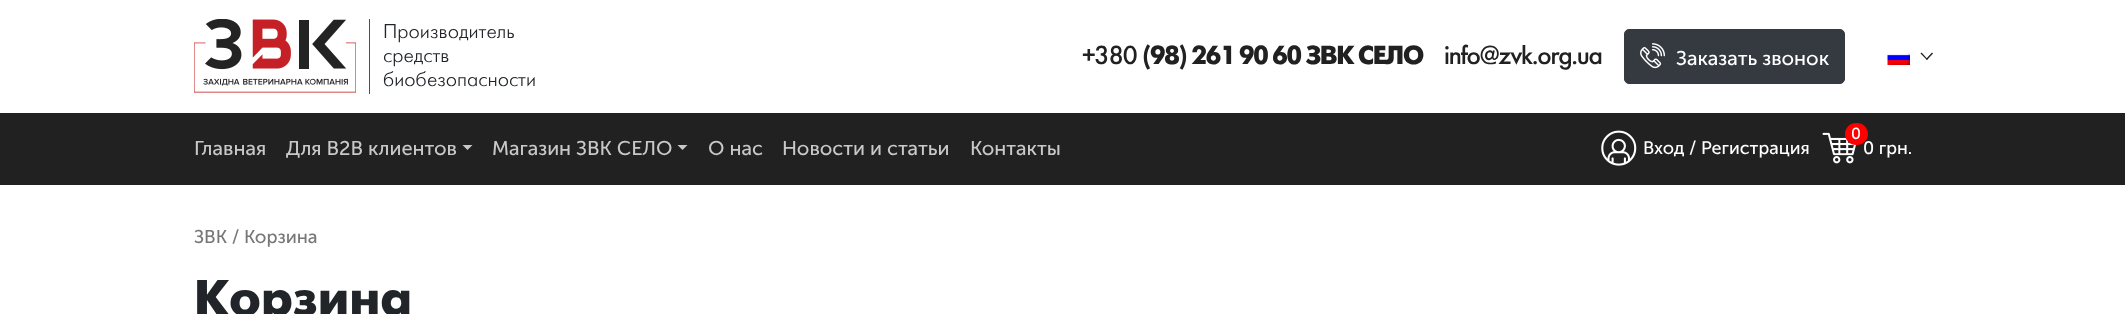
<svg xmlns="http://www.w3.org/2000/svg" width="2125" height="314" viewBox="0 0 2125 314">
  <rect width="100%" height="100%" fill="#ffffff"/>
  <image x="194" y="19" width="162" height="74" href="img1.png"/>
  <rect x="369" y="19" width="1" height="75" fill="#495057"/>
  <text x="383" y="38" font-family="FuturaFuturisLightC" font-size="20" font-weight="300" fill="#212529">Производитель</text>
  <text x="383" y="62" font-family="FuturaFuturisLightC" font-size="20" font-weight="300" fill="#212529">средств</text>
  <text x="383" y="86" font-family="FuturaFuturisLightC" font-size="20" font-weight="300" fill="#212529">биобезопасности</text>
  <text x="1082" y="64" font-family="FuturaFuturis" font-size="26" letter-spacing="-1.25" fill="#212121">+380</text>
  <text x="1142" y="64" font-family="FuturaFuturis" font-size="26" font-weight="bold" letter-spacing="-1.25" fill="#212121">(98) 261 90 60 ЗВК СЕЛО</text>
  <text x="1444" y="64" font-family="FuturaFuturis" font-size="26" letter-spacing="-1.25" fill="#212121">info@zvk.org.ua</text>
  <rect x="1624.5" y="29.5" width="220" height="54" rx="4.5" fill="#343a40" stroke="#343a40"/>
  <image x="1640" y="43" width="25" height="26" href="img2.png"/>
  <text x="1676" y="65" font-family="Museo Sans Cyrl" font-size="20" fill="#ffffff">Заказать звонок</text>
  <image x="1887" y="52" width="23" height="13" href="img3.png"/>
  <path d="M1926 59L1932 52.5L1933 53.5L1927 60Z" fill="#212121"/>
  <path d="M1920.5 53.5L1921.5 52.5L1927.5 59L1927 60Z" fill="#212121"/>
  <rect x="0" y="113" width="2125" height="72" fill="#212121"/>
  <text x="194" y="155" font-family="Museo Sans Cyrl" font-size="20" fill="#c8c8c8">Главная</text>
  <text x="286" y="155" font-family="Museo Sans Cyrl" font-size="20" fill="#c8c8c8">Для В2В клиентов</text>
  <path d="M462.5 145H472.5L467.5 150Z" fill="#c8c8c8"/>
  <text x="492" y="155" font-family="Museo Sans Cyrl" font-size="20" fill="#c8c8c8">Магазин ЗВК СЕЛО</text>
  <path d="M677.5 145H687.5L682.5 150Z" fill="#c8c8c8"/>
  <text x="708" y="155" font-family="Museo Sans Cyrl" font-size="20" fill="#c8c8c8">О нас</text>
  <text x="782" y="155" font-family="Museo Sans Cyrl" font-size="20" fill="#c8c8c8">Новости и статьи</text>
  <text x="970" y="155" font-family="Museo Sans Cyrl" font-size="20" fill="#c8c8c8">Контакты</text>
  <image x="1601" y="130" width="36" height="36" href="img4.png"/>
  <text x="1643" y="154" font-family="Museo Sans Cyrl" font-size="18" fill="#ffffff">Вход / Регистрация</text>
  <image x="1822" y="132" width="34" height="32" href="img5.png"/>
  <text x="1863" y="154" font-family="Museo Sans Cyrl" font-size="18" fill="#ffffff">0 грн.</text>
  <rect x="1845" y="123" width="23" height="22" rx="11" fill="#ff0000"/>
  <text x="1851" y="139" font-family="Museo Sans Cyrl" font-size="16" fill="#ffffff">0</text>
  <text x="194" y="243" font-family="Museo Sans Cyrl" font-size="18.5" fill="#777777">ЗВК / Корзина</text>
  <text x="194" y="315" font-family="FuturaFuturis" font-size="50" font-weight="bold" fill="#212529">Корзина</text>
</svg>
